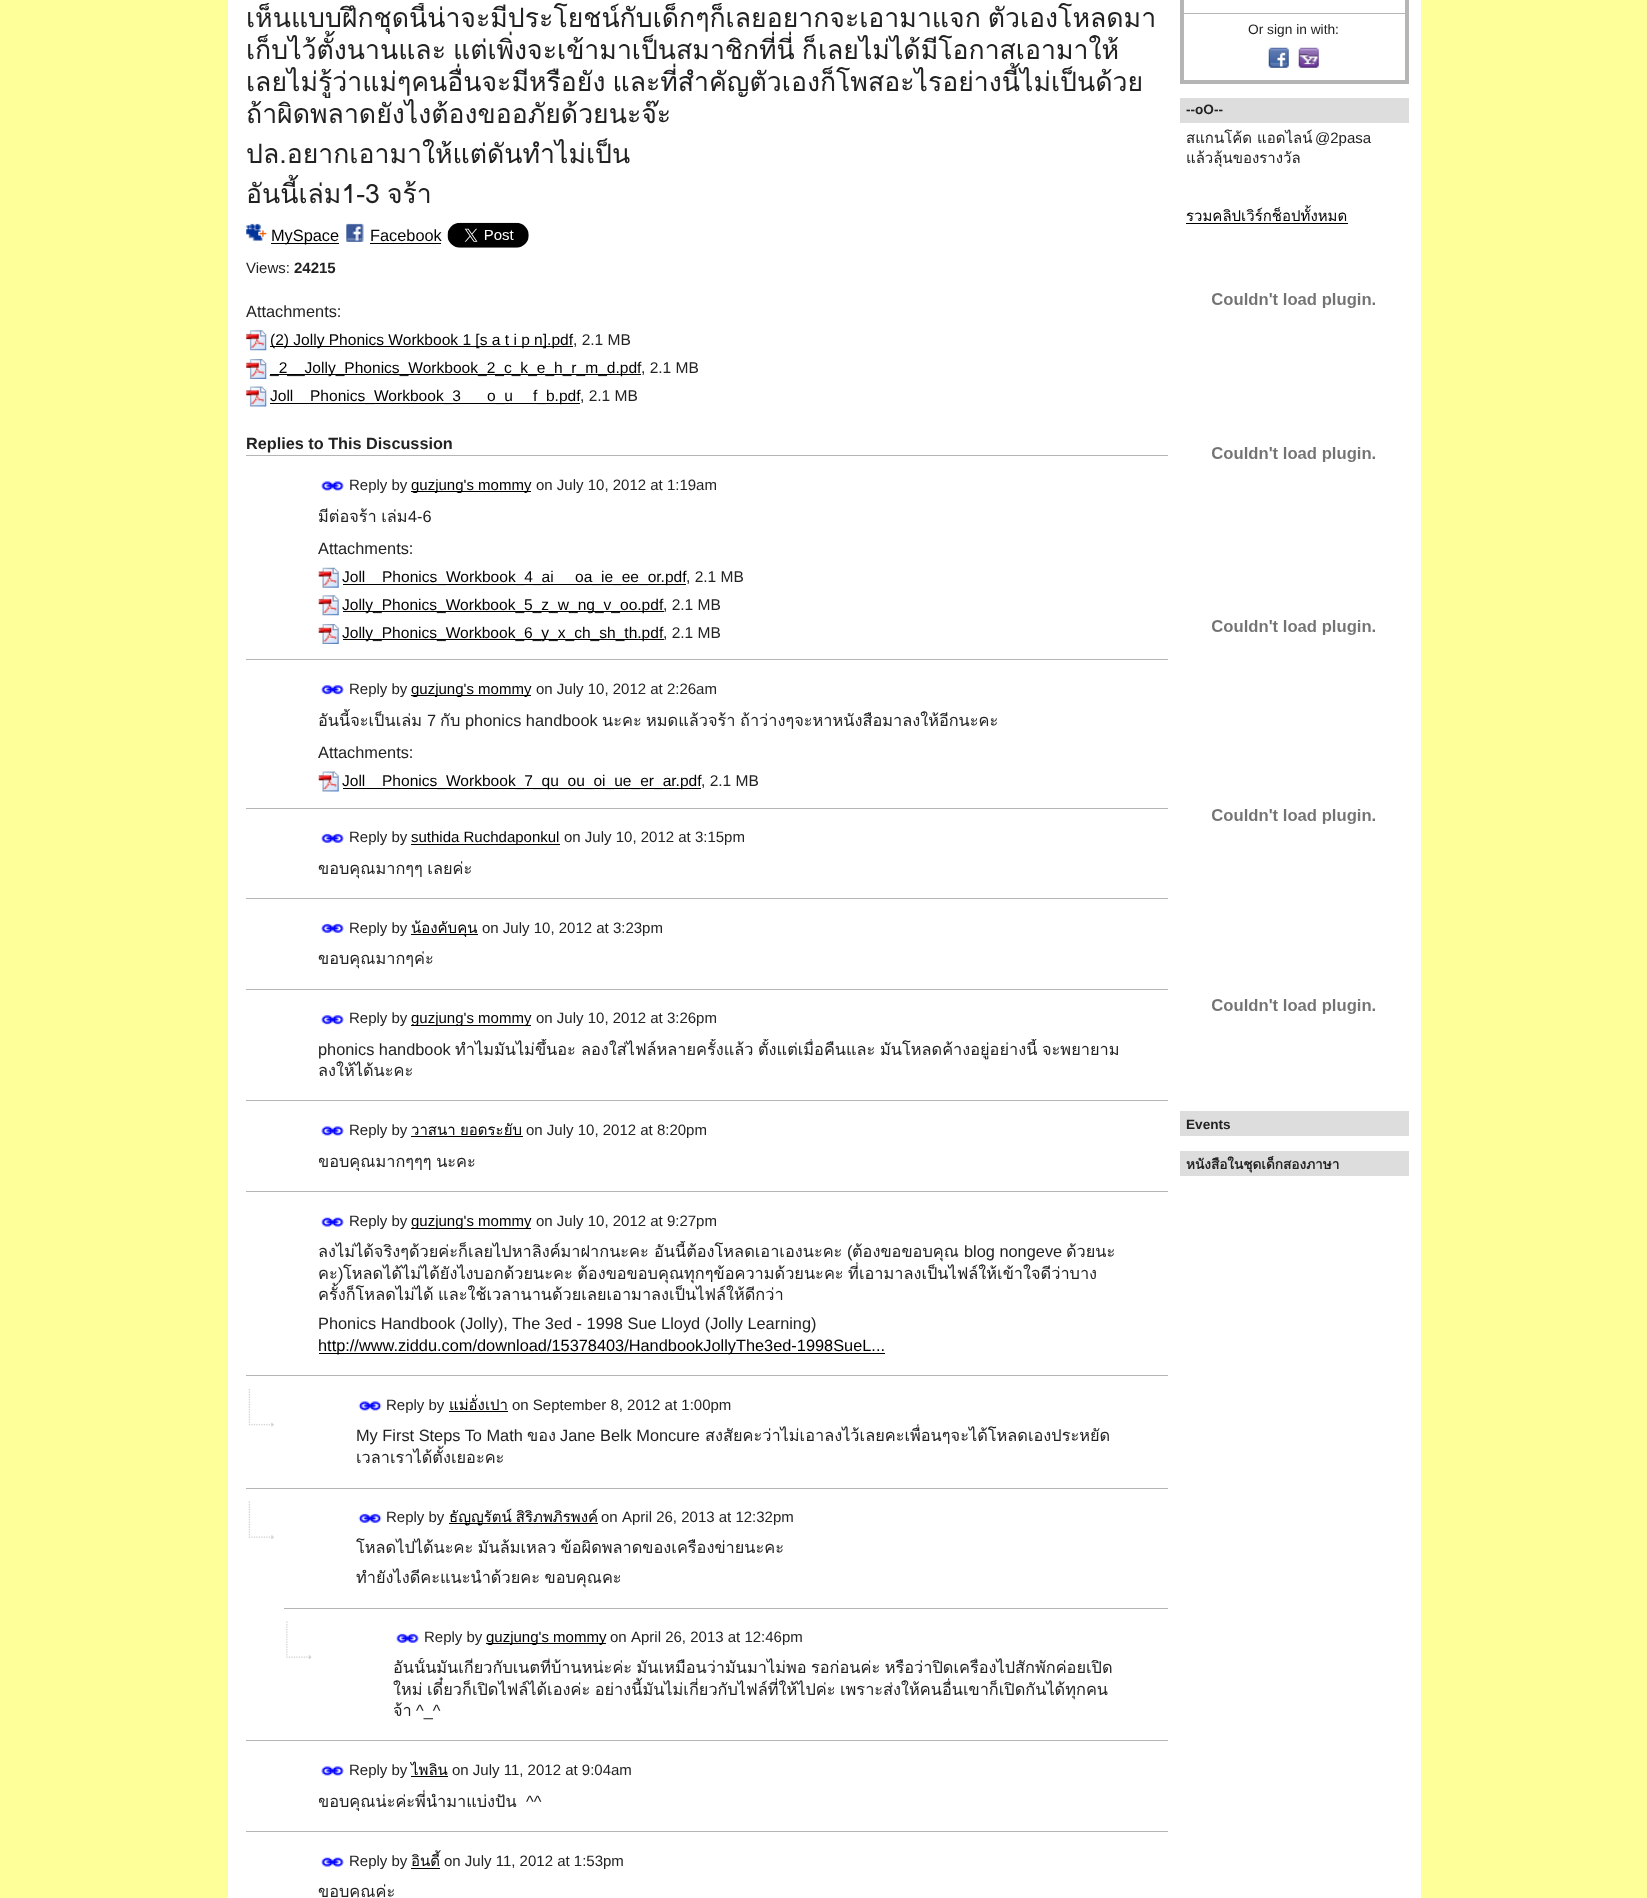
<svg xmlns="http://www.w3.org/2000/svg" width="1647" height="1898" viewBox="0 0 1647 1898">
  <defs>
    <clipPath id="clip1"><rect x="246" y="3" width="922" height="208"/></clipPath>
    <clipPath id="clip2"><rect x="319" y="505" width="805" height="21"/></clipPath>
    <clipPath id="clip3"><rect x="319" y="709" width="805" height="21"/></clipPath>
    <clipPath id="clip4"><rect x="319" y="1039" width="805" height="42"/></clipPath>
    <clipPath id="clip5"><rect x="319" y="1150" width="805" height="21"/></clipPath>
    <clipPath id="clip6"><rect x="319" y="1241" width="805" height="115"/></clipPath>
    <clipPath id="clip7"><rect x="356" y="1538" width="768" height="50"/></clipPath>
    <clipPath id="clip8"><rect x="394" y="1658" width="730" height="63"/></clipPath>
    <clipPath id="clip9"><rect x="319" y="1790" width="805" height="21"/></clipPath>
  </defs>
  <rect width="100%" height="100%" fill="#ffff99"/>
  <rect x="228" y="0" width="1193" height="1898" fill="#ffffff"/>
  <g clip-path="url(#clip1)">
    <text x="246" y="27" word-spacing="-2" font-family="Loma" font-size="26.65" fill="#222222">เห็นแบบฝึกชุดนี้น่าจะมีประโยชน์กับเด็กๆก็เลยอยากจะเอามาแจก ตัวเองโหลดมา</text>
    <text x="246" y="59" word-spacing="-2" font-family="Loma" font-size="26.65" fill="#222222">เก็บไว้ตั้งนานและ แต่เพิ่งจะเข้ามาเป็นสมาชิกที่นี่ ก็เลยไม่ได้มีโอกาสเอามาให้</text>
  </g>
  <text x="246" y="91" word-spacing="-2" font-family="Loma" font-size="26.65" fill="#222222">เลยไม่รู้ว่าแม่ๆคนอื่นจะมีหรือยัง และที่สำคัญตัวเองก็โพสอะไรอย่างนี้ไม่เป็นด้วย</text>
  <g clip-path="url(#clip1)">
    <text x="246" y="123" font-family="Loma" font-size="26.65" fill="#222222">ถ้าผิดพลาดยังไงต้องขออภัยด้วยนะจ๊ะ</text>
  </g>
  <text x="246" y="163" font-family="Loma" font-size="26.65" fill="#222222">ปล.อยากเอามาให้แต่ดันทำไม่เป็น</text>
  <g clip-path="url(#clip1)">
    <text x="246" y="203" word-spacing="-2" font-family="Loma" font-size="26.65" fill="#222222">อันนี้เล่ม1-3 จร้า</text>
  </g>
  <image x="246" y="223" width="21" height="18" href="img1.png"/>
  <rect x="271" y="243" width="68" height="1" fill="#000000"/>
  <text x="271" y="241" font-family="Liberation Sans" font-size="16.35" fill="#000000">MySpace</text>
  <image x="346" y="223" width="18" height="19" href="img2.png"/>
  <text x="370" y="241" font-family="Liberation Sans" font-size="16.35" fill="#000000">Facebook</text>
  <rect x="370" y="243" width="71" height="1" fill="#000000"/>
  <image x="447" y="222" width="82" height="26" href="img3.png"/>
  <text x="246" y="273" font-family="Liberation Sans" font-size="15" fill="#222222">Views:</text>
  <text x="294" y="273" font-family="Liberation Sans" font-size="15" font-weight="bold" fill="#222222">24215</text>
  <text x="246" y="317" font-family="Liberation Sans" font-size="16.35" fill="#222222">Attachments:</text>
  <image x="246" y="330" width="21" height="21" href="img4.png"/>
  <rect x="270" y="346" width="303" height="1" fill="#000000"/>
  <text x="270" y="345" font-family="Liberation Sans" font-size="15.55" fill="#000000">(2) Jolly Phonics Workbook 1 [s a t i p n].pdf</text>
  <text x="573" y="345" font-family="Liberation Sans" font-size="15.55" fill="#222222">, 2.1 MB</text>
  <image x="246" y="359" width="21" height="20" href="img5.png"/>
  <rect x="270" y="374" width="371" height="1" fill="#000000"/>
  <text x="270" y="373" font-family="Liberation Sans" font-size="15.55" fill="#000000">_2__Jolly_Phonics_Workbook_2_c_k_e_h_r_m_d.pdf</text>
  <text x="641" y="373" font-family="Liberation Sans" font-size="15.55" fill="#222222">, 2.1 MB</text>
  <image x="246" y="386" width="21" height="21" href="img6.png"/>
  <text x="270" y="401" font-family="Liberation Sans" font-size="15.55" fill="#000000">Joll</text>
  <rect x="270" y="403" width="310" height="1" fill="#000000"/>
  <text x="310" y="401" font-family="Liberation Sans" font-size="15.55" fill="#000000">Phonics_Workbook_3</text>
  <text x="487" y="401" font-family="Liberation Sans" font-size="15.55" fill="#000000">o_u</text>
  <text x="533" y="401" font-family="Liberation Sans" font-size="15.55" fill="#000000">f_b.pdf</text>
  <text x="580" y="401" font-family="Liberation Sans" font-size="15.55" fill="#222222">, 2.1 MB</text>
  <text x="246" y="449" font-family="Liberation Sans" font-size="16.25" font-weight="bold" fill="#222222">Replies to This Discussion</text>
  <rect x="246" y="455" width="922" height="1" fill="#b5b5b5"/>
  <image x="321" y="481" width="23" height="10" href="img7.png"/>
  <text x="349" y="490" font-family="Liberation Sans" font-size="15" fill="#222222">Reply by</text>
  <rect x="411" y="491" width="120" height="1" fill="#000000"/>
  <text x="411" y="490" font-family="Liberation Sans" font-size="15" fill="#000000">guzjung's mommy</text>
  <text x="536" y="490" font-family="Liberation Sans" font-size="15" fill="#222222">on July 10, 2012 at 1:19am</text>
  <g clip-path="url(#clip2)">
    <text x="318" y="522" word-spacing="-1" font-family="Loma" font-size="16.35" fill="#222222">มีต่อจร้า เล่ม</text>
  </g>
  <text x="408" y="522" font-family="Liberation Sans" font-size="16.35" fill="#222222">4-6</text>
  <text x="318" y="554" font-family="Liberation Sans" font-size="16.35" fill="#222222">Attachments:</text>
  <image x="318" y="567" width="21" height="21" href="img8.png"/>
  <text x="342" y="582" font-family="Liberation Sans" font-size="15.55" fill="#000000">Joll</text>
  <rect x="343" y="584" width="343" height="1" fill="#000000"/>
  <text x="382" y="582" font-family="Liberation Sans" font-size="15.55" fill="#000000">Phonics_Workbook_4_ai</text>
  <text x="575" y="582" font-family="Liberation Sans" font-size="15.55" fill="#000000">oa_ie_ee_or.pdf</text>
  <text x="686" y="582" font-family="Liberation Sans" font-size="15.55" fill="#222222">, 2.1 MB</text>
  <image x="318" y="595" width="21" height="21" href="img9.png"/>
  <rect x="343" y="611" width="321" height="1" fill="#000000"/>
  <text x="342" y="610" font-family="Liberation Sans" font-size="15.55" fill="#000000">Jolly_Phonics_Workbook_5_z_w_ng_v_oo.pdf</text>
  <text x="663" y="610" font-family="Liberation Sans" font-size="15.55" fill="#222222">, 2.1 MB</text>
  <image x="318" y="624" width="21" height="20" href="img10.png"/>
  <rect x="343" y="639" width="321" height="1" fill="#000000"/>
  <text x="342" y="638" font-family="Liberation Sans" font-size="15.55" fill="#000000">Jolly_Phonics_Workbook_6_y_x_ch_sh_th.pdf</text>
  <text x="663" y="638" font-family="Liberation Sans" font-size="15.55" fill="#222222">, 2.1 MB</text>
  <rect x="246" y="659" width="922" height="1" fill="#b5b5b5"/>
  <image x="321" y="685" width="23" height="10" href="img11.png"/>
  <text x="349" y="694" font-family="Liberation Sans" font-size="15" fill="#222222">Reply by</text>
  <rect x="411" y="695" width="120" height="1" fill="#000000"/>
  <text x="411" y="694" font-family="Liberation Sans" font-size="15" fill="#000000">guzjung's mommy</text>
  <text x="536" y="694" font-family="Liberation Sans" font-size="15" fill="#222222">on July 10, 2012 at 2:26am</text>
  <g clip-path="url(#clip3)">
    <text x="318" y="726" font-family="Loma" font-size="16.35" fill="#222222">อันนี้จะเป็นเล่ม</text>
  </g>
  <text x="427" y="726" font-family="Liberation Sans" font-size="16.35" fill="#222222">7</text>
  <text x="440" y="726" font-family="Loma" font-size="16.35" fill="#222222">กับ</text>
  <text x="465" y="726" font-family="Liberation Sans" font-size="16.35" fill="#222222">phonics handbook</text>
  <text x="602" y="726" font-family="Loma" font-size="16.35" fill="#222222">นะคะ</text>
  <text x="646" y="726" font-family="Loma" font-size="16.35" fill="#222222">หมดแล้วจร้า</text>
  <text x="740" y="726" font-family="Loma" font-size="16.35" fill="#222222">ถ้าว่างๆจะหาหนังสือมาลงให้อีกนะคะ</text>
  <text x="318" y="758" font-family="Liberation Sans" font-size="16.35" fill="#222222">Attachments:</text>
  <image x="318" y="771" width="21" height="21" href="img12.png"/>
  <text x="342" y="786" font-family="Liberation Sans" font-size="15.55" fill="#000000">Joll</text>
  <rect x="343" y="788" width="358" height="1" fill="#000000"/>
  <text x="382" y="786" font-family="Liberation Sans" font-size="15.55" fill="#000000">Phonics_Workbook_7_qu_ou_oi_ue_er_ar.pdf</text>
  <text x="701" y="786" font-family="Liberation Sans" font-size="15.55" fill="#222222">, 2.1 MB</text>
  <rect x="246" y="808" width="922" height="1" fill="#b5b5b5"/>
  <image x="321" y="833" width="23" height="10" href="img13.png"/>
  <text x="349" y="842" font-family="Liberation Sans" font-size="15" fill="#222222">Reply by</text>
  <rect x="411" y="844" width="149" height="1" fill="#000000"/>
  <text x="411" y="842" font-family="Liberation Sans" font-size="15" fill="#000000">suthida Ruchdaponkul</text>
  <text x="564" y="842" font-family="Liberation Sans" font-size="15" fill="#222222">on July 10, 2012 at 3:15pm</text>
  <text x="318" y="874" word-spacing="-1" font-family="Loma" font-size="16.35" fill="#222222">ขอบคุณมากๆๆ เลยค่ะ</text>
  <rect x="246" y="898" width="922" height="1" fill="#b5b5b5"/>
  <image x="321" y="923" width="23" height="10" href="img13.png"/>
  <text x="349" y="933" font-family="Liberation Sans" font-size="15" fill="#222222">Reply by</text>
  <rect x="411" y="934" width="67" height="1" fill="#000000"/>
  <text x="411" y="933" font-family="Loma" font-size="15" fill="#000000">น้องคับคุน</text>
  <text x="482" y="933" font-family="Liberation Sans" font-size="15" fill="#222222">on July 10, 2012 at 3:23pm</text>
  <text x="318" y="964" font-family="Loma" font-size="16.35" fill="#222222">ขอบคุณมากๆค่ะ</text>
  <rect x="246" y="989" width="922" height="1" fill="#b5b5b5"/>
  <image x="321" y="1015" width="23" height="10" href="img14.png"/>
  <text x="349" y="1023" font-family="Liberation Sans" font-size="15" fill="#222222">Reply by</text>
  <rect x="411" y="1025" width="120" height="1" fill="#000000"/>
  <text x="411" y="1023" font-family="Liberation Sans" font-size="15" fill="#000000">guzjung's mommy</text>
  <text x="536" y="1023" font-family="Liberation Sans" font-size="15" fill="#222222">on July 10, 2012 at 3:26pm</text>
  <text x="318" y="1055" font-family="Liberation Sans" font-size="16.35" fill="#222222">phonics handbook</text>
  <g clip-path="url(#clip4)">
    <text x="455" y="1055" font-family="Loma" font-size="16.35" fill="#222222">ทำไมมันไม่ขึ้นอะ</text>
    <text x="581" y="1055" font-family="Loma" font-size="16.35" fill="#222222">ลองใส่ไฟล์หลายครั้งแล้ว</text>
    <text x="758" y="1055" font-family="Loma" font-size="16.35" fill="#222222">ตั้งแต่เมื่อคืนและ</text>
    <text x="880" y="1055" font-family="Loma" font-size="16.35" fill="#222222">มันโหลดค้างอยู่อย่างนี้</text>
  </g>
  <text x="1042" y="1055" font-family="Loma" font-size="16.35" fill="#222222">จะพยายาม</text>
  <text x="318" y="1076" font-family="Loma" font-size="16.35" fill="#222222">ลงให้ได้นะคะ</text>
  <rect x="246" y="1100" width="922" height="1" fill="#b5b5b5"/>
  <image x="321" y="1126" width="23" height="10" href="img7.png"/>
  <text x="349" y="1135" font-family="Liberation Sans" font-size="15" fill="#222222">Reply by</text>
  <text x="411" y="1135" font-family="Loma" font-size="15" fill="#000000">วาสนา</text>
  <rect x="411" y="1136" width="112" height="1" fill="#000000"/>
  <text x="460" y="1135" font-family="Loma" font-size="15" fill="#000000">ยอดระยับ</text>
  <text x="526" y="1135" font-family="Liberation Sans" font-size="15" fill="#222222">on July 10, 2012 at 8:20pm</text>
  <g clip-path="url(#clip5)">
    <text x="318" y="1167" word-spacing="-1" font-family="Loma" font-size="16.35" fill="#222222">ขอบคุณมากๆๆๆ นะคะ</text>
  </g>
  <rect x="246" y="1191" width="922" height="1" fill="#b5b5b5"/>
  <image x="321" y="1217" width="23" height="10" href="img15.png"/>
  <text x="349" y="1226" font-family="Liberation Sans" font-size="15" fill="#222222">Reply by</text>
  <rect x="411" y="1228" width="120" height="1" fill="#000000"/>
  <text x="411" y="1226" font-family="Liberation Sans" font-size="15" fill="#000000">guzjung's mommy</text>
  <text x="536" y="1226" font-family="Liberation Sans" font-size="15" fill="#222222">on July 10, 2012 at 9:27pm</text>
  <text x="318" y="1257" font-family="Loma" font-size="16.35" fill="#222222">ลงไม่ได้จริงๆด้วยค่ะก็เลยไปหาลิงค์มาฝากนะคะ</text>
  <g clip-path="url(#clip6)">
    <text x="654" y="1257" font-family="Loma" font-size="16.35" fill="#222222">อันนี้ต้องโหลดเอาเองนะคะ</text>
  </g>
  <text x="847" y="1257" font-family="Liberation Sans" font-size="16.35" fill="#222222">(</text>
  <text x="852" y="1257" font-family="Loma" font-size="16.35" fill="#222222">ต้องขอขอบคุณ</text>
  <text x="964" y="1257" font-family="Liberation Sans" font-size="16.35" fill="#222222">blog nongeve</text>
  <text x="1066" y="1257" font-family="Loma" font-size="16.35" fill="#222222">ด้วยนะ</text>
  <text x="318" y="1279" font-family="Loma" font-size="16.35" fill="#222222">คะ</text>
  <text x="338" y="1279" font-family="Liberation Sans" font-size="16.35" fill="#222222">)</text>
  <text x="343" y="1279" word-spacing="-1" font-family="Loma" font-size="16.35" fill="#222222">โหลดได้ไม่ได้ยังไงบอกด้วยนะคะ ต้องขอขอบคุณทุกๆข้อความด้วยนะคะ ที่เอามาลงเป็นไฟล์ให้เข้าใจดีว่าบาง</text>
  <text x="318" y="1300" word-spacing="-1" font-family="Loma" font-size="16.35" fill="#222222">ครั้งก็โหลดไม่ได้ และใช้เวลานานด้วยเลยเอามาลงเป็นไฟล์ให้ดีกว่า</text>
  <text x="318" y="1329" font-family="Liberation Sans" font-size="16.35" fill="#222222">Phonics Handbook (Jolly), The 3ed - 1998 Sue Lloyd (Jolly Learning)</text>
  <rect x="319" y="1353" width="566" height="1" fill="#000000"/>
  <text x="318" y="1351" font-family="Liberation Sans" font-size="16.35" fill="#000000">http://www.ziddu.com/download/15378403/HandbookJollyThe3ed-1998SueL...</text>
  <image x="248" y="1389" width="26" height="38" href="img16.png"/>
  <rect x="246" y="1375" width="922" height="1" fill="#b5b5b5"/>
  <image x="358" y="1401" width="24" height="10" href="img17.png"/>
  <text x="386" y="1410" font-family="Liberation Sans" font-size="15" fill="#222222">Reply by</text>
  <text x="449" y="1410" font-family="Loma" font-size="15" fill="#000000">แม่อั่งเปา</text>
  <rect x="449" y="1411" width="59" height="1" fill="#000000"/>
  <text x="512" y="1410" font-family="Liberation Sans" font-size="15" fill="#222222">on September 8, 2012 at 1:00pm</text>
  <text x="356" y="1441" font-family="Liberation Sans" font-size="16.35" fill="#222222">My First Steps To Math</text>
  <text x="527" y="1441" font-family="Loma" font-size="16.35" fill="#222222">ของ</text>
  <text x="560" y="1441" font-family="Liberation Sans" font-size="16.35" fill="#222222">Jane Belk Moncure</text>
  <text x="705" y="1441" font-family="Loma" font-size="16.35" fill="#222222">สงสัยคะว่าไม่เอาลงไว้เลยคะเพื่อนๆจะได้โหลดเองประหยัด</text>
  <text x="356" y="1463" font-family="Loma" font-size="16.35" fill="#222222">เวลาเราได้ตั้งเยอะคะ</text>
  <image x="248" y="1501" width="26" height="38" href="img18.png"/>
  <rect x="246" y="1488" width="922" height="1" fill="#b5b5b5"/>
  <image x="358" y="1513" width="24" height="10" href="img19.png"/>
  <text x="386" y="1522" font-family="Liberation Sans" font-size="15" fill="#222222">Reply by</text>
  <rect x="449" y="1523" width="149" height="1" fill="#000000"/>
  <text x="449" y="1522" word-spacing="-1" font-family="Loma" font-size="15" fill="#000000">ธัญญรัตน์ สิริภพภิรพงค์</text>
  <text x="601" y="1522" font-family="Liberation Sans" font-size="15" fill="#222222">on</text>
  <text x="622" y="1522" font-family="Liberation Sans" font-size="15" fill="#222222">April 26, 2013 at 12:32pm</text>
  <text x="356" y="1553" word-spacing="-1" font-family="Loma" font-size="16.35" fill="#222222">โหลดไปได้นะคะ มันล้มเหลว ข้อผิดพลาดของเครืองข่ายนะคะ</text>
  <g clip-path="url(#clip7)">
    <text x="356" y="1583" word-spacing="-1" font-family="Loma" font-size="16.35" fill="#222222">ทำยังไงดีคะแนะนำด้วยคะ ขอบคุณคะ</text>
  </g>
  <image x="286" y="1621" width="26" height="38" href="img20.png"/>
  <rect x="284" y="1608" width="884" height="1" fill="#b5b5b5"/>
  <image x="396" y="1633" width="23" height="10" href="img13.png"/>
  <text x="424" y="1642" font-family="Liberation Sans" font-size="15" fill="#222222">Reply by</text>
  <rect x="486" y="1643" width="120" height="1" fill="#000000"/>
  <text x="486" y="1642" font-family="Liberation Sans" font-size="15" fill="#000000">guzjung's mommy</text>
  <text x="610" y="1642" font-family="Liberation Sans" font-size="15" fill="#222222">on</text>
  <text x="631" y="1642" font-family="Liberation Sans" font-size="15" fill="#222222">April 26, 2013 at 12:46pm</text>
  <g clip-path="url(#clip8)">
    <text x="393" y="1673" word-spacing="-1" font-family="Loma" font-size="16.35" fill="#222222">อันนั้นมันเกี่ยวกับเนตที่บ้านหน่ะค่ะ มันเหมือนว่ามันมาไม่พอ รอก่อนค่ะ หรือว่าปิดเครื่องไปสักพักค่อยเปิด</text>
  </g>
  <text x="393" y="1695" word-spacing="-1" font-family="Loma" font-size="16.35" fill="#222222">ใหม่ เดี๋ยวก็เปิดไฟล์ได้เองค่ะ อย่างนี้มันไม่เกี่ยวกับไฟล์ที่ให้ไปค่ะ เพราะส่งให้คนอื่นเขาก็เปิดกันได้ทุกคน</text>
  <g clip-path="url(#clip8)">
    <text x="393" y="1716" font-family="Loma" font-size="16.35" fill="#222222">จ้า</text>
  </g>
  <text x="416" y="1716" font-family="Liberation Sans" font-size="16.35" fill="#222222">^_^</text>
  <rect x="246" y="1740" width="922" height="1" fill="#b5b5b5"/>
  <image x="321" y="1766" width="23" height="10" href="img7.png"/>
  <text x="349" y="1775" font-family="Liberation Sans" font-size="15" fill="#222222">Reply by</text>
  <text x="411" y="1775" font-family="Loma" font-size="15" fill="#000000">ไพลิน</text>
  <rect x="411" y="1776" width="37" height="1" fill="#000000"/>
  <text x="452" y="1775" font-family="Liberation Sans" font-size="15" fill="#222222">on July 11, 2012 at 9:04am</text>
  <g clip-path="url(#clip9)">
    <text x="318" y="1807" font-family="Loma" font-size="16.35" fill="#222222">ขอบคุณน่ะค่ะพี่นำมาแบ่งปัน</text>
  </g>
  <text x="526" y="1807" font-family="Liberation Sans" font-size="16.35" fill="#222222">^^</text>
  <rect x="246" y="1831" width="922" height="1" fill="#b5b5b5"/>
  <image x="321" y="1857" width="23" height="10" href="img15.png"/>
  <text x="349" y="1866" font-family="Liberation Sans" font-size="15" fill="#222222">Reply by</text>
  <text x="411" y="1866" font-family="Loma" font-size="15" fill="#000000">อินดี้</text>
  <rect x="411" y="1868" width="29" height="1" fill="#000000"/>
  <text x="444" y="1866" font-family="Liberation Sans" font-size="15" fill="#222222">on July 11, 2012 at 1:53pm</text>
  <text x="318" y="1897" font-family="Loma" font-size="16.35" fill="#222222">ขอบคุณค่ะ</text>
  <rect x="1182" y="-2" width="225" height="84" fill="none" stroke="#b5b5b5" stroke-width="4"/>
  <rect x="1184" y="13" width="221" height="1" fill="#b5b5b5"/>
  <text x="1248" y="34" font-family="Liberation Sans" font-size="13.75" fill="#222222">Or sign in with:</text>
  <image x="1268" y="47" width="21" height="21" href="img21.png"/>
  <image x="1298" y="47" width="21" height="21" href="img22.png"/>
  <rect x="1180" y="98" width="229" height="25" fill="#dddddd"/>
  <text x="1186" y="114" font-family="Liberation Sans" font-size="13.6" font-weight="bold" fill="#222222">--oO--</text>
  <text x="1186" y="143" font-family="Loma" font-size="15" fill="#222222">สแกนโค้ด แอดไลน์</text>
  <text x="1315" y="143" font-family="Liberation Sans" font-size="15" fill="#222222">@2pasa</text>
  <text x="1186" y="163" font-family="Loma" font-size="15" fill="#222222">แล้วลุ้นของรางวัล</text>
  <text x="1186" y="221" font-family="Loma" font-size="15" fill="#000000">รวมคลิปเวิร์กช็อปทั้งหมด</text>
  <rect x="1186" y="223" width="162" height="1" fill="#000000"/>
  <image x="1212" y="293" width="163" height="15" href="img23.png"/>
  <image x="1212" y="447" width="163" height="15" href="img23.png"/>
  <image x="1212" y="620" width="163" height="15" href="img23.png"/>
  <image x="1212" y="809" width="163" height="15" href="img23.png"/>
  <image x="1212" y="999" width="163" height="15" href="img23.png"/>
  <rect x="1180" y="1111" width="229" height="25" fill="#dddddd"/>
  <text x="1186" y="1129" font-family="Liberation Sans" font-size="13.6" font-weight="bold" fill="#222222">Events</text>
  <rect x="1180" y="1151" width="229" height="25" fill="#dddddd"/>
  <text x="1186" y="1169" font-family="Loma" font-size="13.6" font-weight="bold" fill="#222222">หนังสือในชุดเด็กสองภาษา</text>
</svg>
